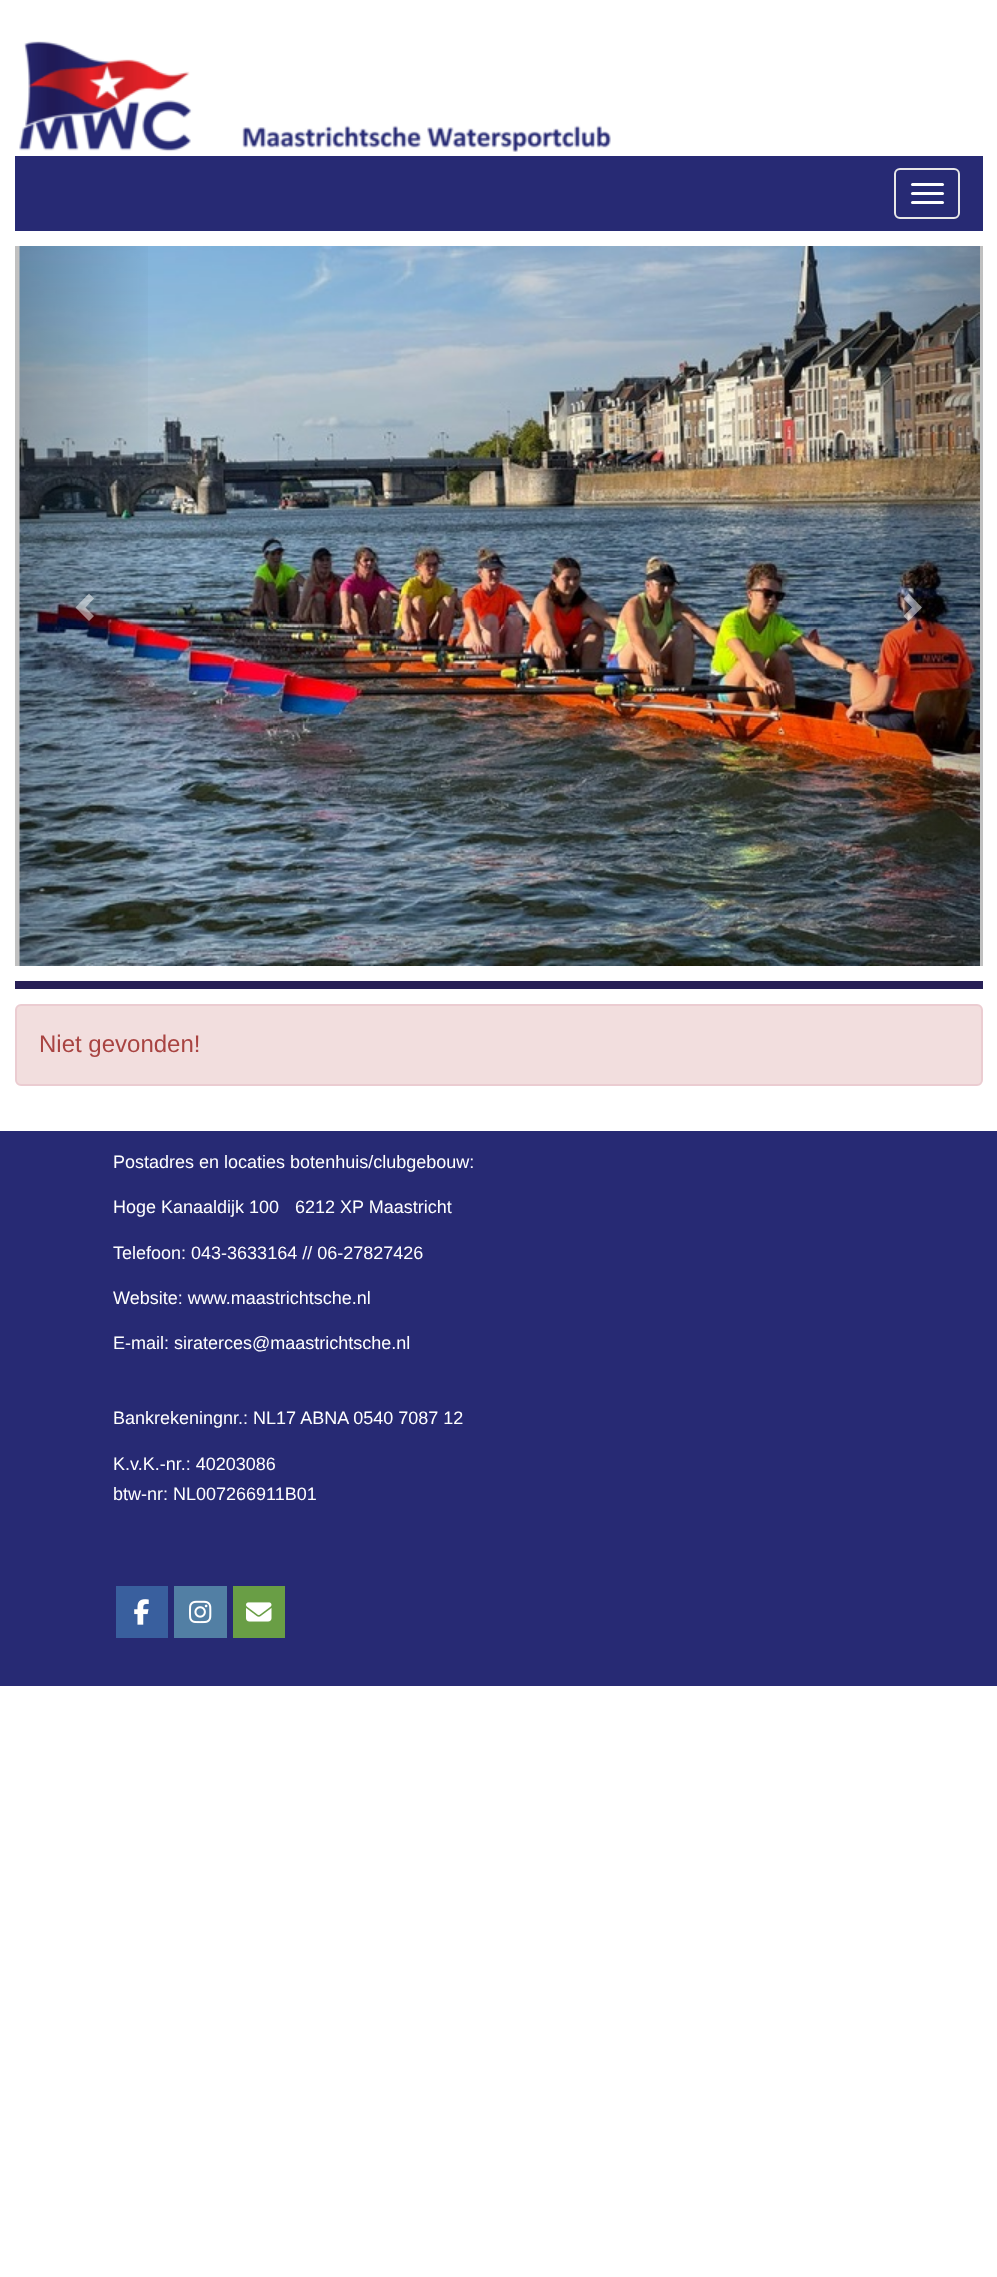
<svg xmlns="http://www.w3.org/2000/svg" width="997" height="2277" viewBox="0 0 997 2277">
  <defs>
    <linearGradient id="g1" gradientUnits="userSpaceOnUse" x1="15" y1="606" x2="161" y2="606"><stop offset="0" stop-color="#000000" stop-opacity="0.25"/><stop offset="1" stop-color="#000000" stop-opacity="0"/></linearGradient>
    <linearGradient id="g2" gradientUnits="userSpaceOnUse" x1="837" y1="606" x2="983" y2="606"><stop offset="0" stop-color="#000000" stop-opacity="0"/><stop offset="1" stop-color="#000000" stop-opacity="0.25"/></linearGradient>
  </defs>
  <rect width="100%" height="100%" fill="#ffffff"/>
  <image x="19" y="41" width="592" height="111" href="img1.png"/>
  <rect x="15" y="156" width="968" height="75" fill="#272a74"/>
  <rect x="895" y="169" width="64" height="49" rx="5" fill="none" stroke="#e7e7e7" stroke-width="2"/>
  <rect x="911" y="183" width="33" height="3" rx="1.5" fill="#ffffff"/>
  <rect x="911" y="192" width="33" height="3" rx="1.5" fill="#ffffff"/>
  <rect x="911" y="201" width="33" height="3" rx="1.5" fill="#ffffff"/>
  <image x="19" y="246" width="961" height="720" href="img2.png"/>
  <rect x="15" y="246" width="133" height="720" fill="url(#g1)"/>
  <path d="M94 598.5L85.5 607.5L94 616L89 621L75.5 607.5L89 593.5Z" fill="#ffffff" fill-opacity="0.5"/>
  <rect x="850" y="246" width="133" height="720" fill="url(#g2)"/>
  <path d="M922 607.5L908.5 621L903.5 616L912 607.5L903.5 598.5L908.5 593.5Z" fill="#ffffff" fill-opacity="0.5"/>
  <rect x="15" y="981" width="968" height="8" fill="#272056"/>
  <rect x="16" y="1005" width="966" height="80" rx="5" fill="#f2dede" stroke="#ebccd1" stroke-width="2"/>
  <text x="39" y="1052" font-family="Liberation Sans" font-size="24" fill="#a94442">Niet gevonden!</text>
  <rect x="0" y="1131" width="997" height="555" fill="#272a74"/>
  <text x="113" y="1168" font-family="Liberation Sans" font-size="18" fill="#ffffff">Postadres en locaties botenhuis/clubgebouw:</text>
  <text x="113" y="1213" font-family="Liberation Sans" font-size="18" fill="#ffffff">Hoge Kanaaldijk 100</text>
  <text x="295" y="1213" font-family="Liberation Sans" font-size="18" fill="#ffffff">6212 XP Maastricht</text>
  <text x="113" y="1259" font-family="Liberation Sans" font-size="18" fill="#ffffff">Telefoon: 043-3633164 // 06-27827426</text>
  <text x="113" y="1304" font-family="Liberation Sans" font-size="18" fill="#ffffff">Website: www.maastrichtsche.nl</text>
  <text x="113" y="1349" font-family="Liberation Sans" font-size="18" fill="#ffffff">E-mail: siraterces@maastrichtsche.nl</text>
  <text x="113" y="1424" font-family="Liberation Sans" font-size="18" fill="#ffffff">Bankrekeningnr.: NL17 ABNA 0540 7087 12</text>
  <text x="113" y="1470" font-family="Liberation Sans" font-size="18" fill="#ffffff">K.v.K.-nr.: 40203086</text>
  <text x="113" y="1500" font-family="Liberation Sans" font-size="18" fill="#ffffff">btw-nr: NL007266911B01</text>
  <rect x="116" y="1586" width="52" height="52" fill="#395f9e"/>
  <image x="134" y="1599" width="15" height="26" href="img3.png"/>
  <rect x="174" y="1586" width="53" height="52" fill="#527fa4"/>
  <image x="189" y="1600" width="23" height="24" href="img4.png"/>
  <rect x="233" y="1586" width="52" height="52" fill="#699e45"/>
  <image x="246" y="1602" width="26" height="20" href="img5.png"/>
</svg>
